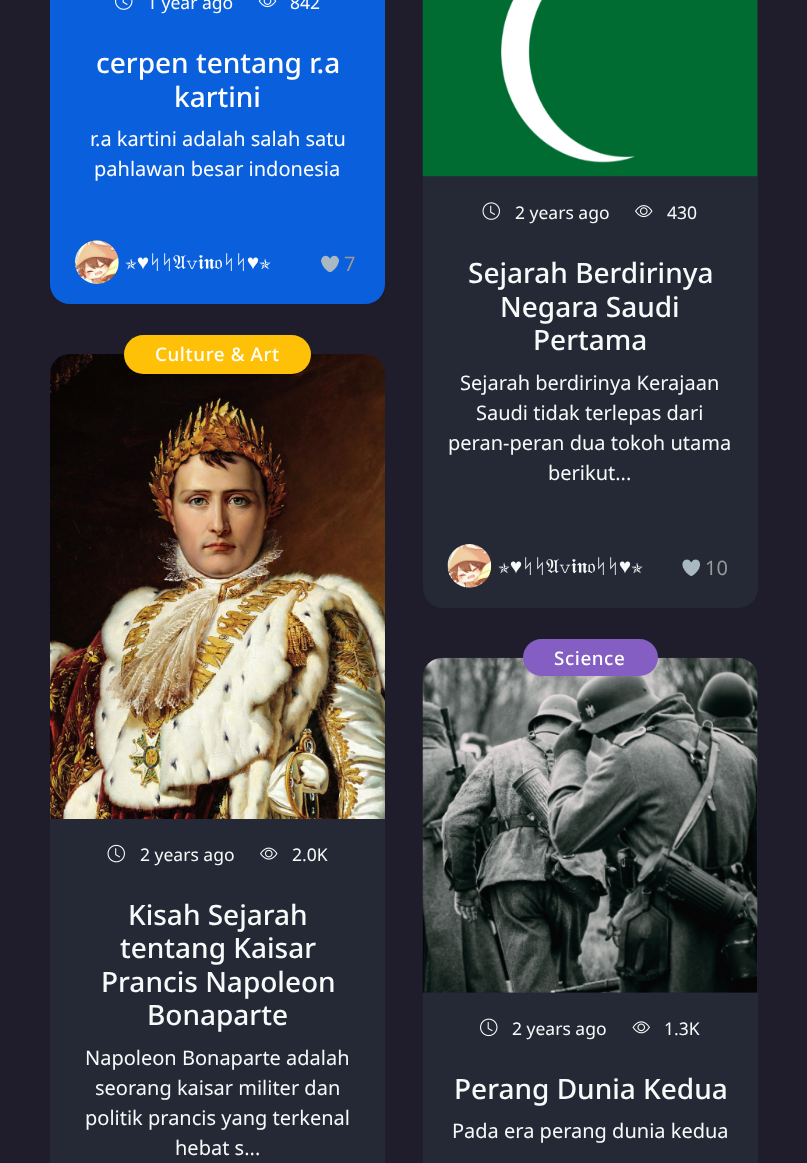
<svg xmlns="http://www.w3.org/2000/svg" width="807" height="1163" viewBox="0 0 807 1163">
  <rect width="100%" height="100%" fill="#1f1d2b"/>
  <rect x="50" y="-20" width="335" height="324" rx="20" fill="#0d6efd"/>
  <rect x="50" y="0" width="335" height="304" fill="#000000" fill-opacity="0.03"/>
  <rect x="50" y="-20" width="335" height="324" rx="20" fill="#000000" fill-opacity="0.1"/>
  <image x="115" y="0" width="18" height="10" href="img1.png"/>
  <text x="147" y="9" font-family="Noto Sans" font-size="17.5" fill="#ffffff">1 year ago</text>
  <image x="258" y="0" width="19" height="8" href="img2.png"/>
  <text x="290" y="9" font-family="Noto Sans" font-size="17.5" fill="#ffffff">842</text>
  <text x="96" y="73" font-family="Noto Sans" font-size="28" font-weight="500" fill="#ffffff">cerpen tentang r.a</text>
  <text x="174" y="107" font-family="Noto Sans" font-size="28" font-weight="500" fill="#ffffff">kartini</text>
  <text x="90" y="146" font-family="Noto Sans" font-size="20" fill="#ffffff">r.a kartini adalah salah satu</text>
  <text x="94" y="176" font-family="Noto Sans" font-size="20" fill="#ffffff">pahlawan besar indonesia</text>
  <image x="75" y="240" width="44" height="44" href="img3.png"/>
  <text x="125" y="269" font-family="FreeMono" font-size="20" fill="#ffffff">✯♥ᛋᛋ</text>
  <text x="173" y="269" font-family="FreeSerif" font-size="20" fill="#ffffff">𝔄</text>
  <text x="186" y="269" font-family="FreeMono" font-size="20" fill="#ffffff">v</text>
  <text x="198" y="269" font-family="FreeSerif" font-size="20" fill="#ffffff">𝖎𝖓𝔬</text>
  <text x="223" y="269" font-family="FreeMono" font-size="20" fill="#ffffff">ᛋᛋ♥✯</text>
  <image x="321" y="255" width="19" height="18" href="img4.png"/>
  <text x="344" y="271" font-family="Noto Sans" font-size="20" fill="#999999">7</text>
  <rect x="50" y="354" width="335" height="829" rx="20" fill="#292e3c"/>
  <rect x="50" y="354" width="335" height="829" rx="20" fill="#000000" fill-opacity="0.1"/>
  <image x="50" y="354" width="335" height="465" href="img5.png"/>
  <rect x="124" y="335" width="187" height="39" rx="19.5" fill="#ffc107"/>
  <text x="155" y="361" font-family="Noto Sans" font-size="18.75" font-weight="500" letter-spacing="0.6" fill="#ffffff">Culture &amp; Art</text>
  <image x="107" y="844" width="18" height="19" href="img6.png"/>
  <text x="140" y="861" font-family="Noto Sans" font-size="17.5" fill="#f8f9fa">2 years ago</text>
  <image x="260" y="847" width="18" height="13" href="img7.png"/>
  <text x="292" y="861" font-family="Noto Sans" font-size="17.5" fill="#f8f9fa">2.0K</text>
  <text x="128" y="925" font-family="Noto Sans" font-size="28" font-weight="500" fill="#f8f9fa">Kisah Sejarah</text>
  <text x="120" y="958" font-family="Noto Sans" font-size="28" font-weight="500" fill="#f8f9fa">tentang Kaisar</text>
  <text x="101" y="992" font-family="Noto Sans" font-size="28" font-weight="500" fill="#f8f9fa">Prancis Napoleon</text>
  <text x="147" y="1025" font-family="Noto Sans" font-size="28" font-weight="500" fill="#f8f9fa">Bonaparte</text>
  <text x="85" y="1065" font-family="Noto Sans" font-size="20" fill="#f8f9fa">Napoleon Bonaparte adalah</text>
  <text x="95" y="1095" font-family="Noto Sans" font-size="20" fill="#f8f9fa">seorang kaisar militer dan</text>
  <text x="85" y="1125" font-family="Noto Sans" font-size="20" fill="#f8f9fa">politik prancis yang terkenal</text>
  <text x="175" y="1155" font-family="Noto Sans" font-size="20" fill="#f8f9fa">hebat s...</text>
  <rect x="423" y="-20" width="335" height="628" rx="20" fill="#292e3c"/>
  <rect x="423" y="-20" width="335" height="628" rx="20" fill="#000000" fill-opacity="0.1"/>
  <image x="422" y="0" width="336" height="177" href="img8.png"/>
  <image x="482" y="202" width="18" height="18" href="img9.png"/>
  <text x="515" y="219" font-family="Noto Sans" font-size="17.5" fill="#f8f9fa">2 years ago</text>
  <image x="635" y="205" width="18" height="13" href="img10.png"/>
  <text x="667" y="219" font-family="Noto Sans" font-size="17.5" fill="#f8f9fa">430</text>
  <text x="468" y="283" font-family="Noto Sans" font-size="28" font-weight="500" fill="#f8f9fa">Sejarah Berdirinya</text>
  <text x="500" y="317" font-family="Noto Sans" font-size="28" font-weight="500" fill="#f8f9fa">Negara Saudi</text>
  <text x="533" y="350" font-family="Noto Sans" font-size="28" font-weight="500" fill="#f8f9fa">Pertama</text>
  <text x="460" y="390" font-family="Noto Sans" font-size="20" fill="#f8f9fa">Sejarah berdirinya Kerajaan</text>
  <text x="476" y="420" font-family="Noto Sans" font-size="20" fill="#f8f9fa">Saudi tidak terlepas dari</text>
  <text x="448" y="450" font-family="Noto Sans" font-size="20" fill="#f8f9fa">peran-peran dua tokoh utama</text>
  <text x="548" y="480" font-family="Noto Sans" font-size="20" fill="#f8f9fa">berikut...</text>
  <image x="447" y="544" width="45" height="44" href="img11.png"/>
  <text x="498" y="573" font-family="FreeMono" font-size="20" fill="#f8f9fa">✯♥ᛋᛋ</text>
  <text x="546" y="573" font-family="FreeSerif" font-size="20" fill="#f8f9fa">𝔄</text>
  <text x="559" y="573" font-family="FreeMono" font-size="20" fill="#f8f9fa">v</text>
  <text x="571" y="573" font-family="FreeSerif" font-size="20" fill="#f8f9fa">𝖎𝖓𝔬</text>
  <text x="595" y="573" font-family="FreeMono" font-size="20" fill="#f8f9fa">ᛋᛋ♥✯</text>
  <image x="682" y="559" width="19" height="18" href="img12.png"/>
  <text x="705" y="575" font-family="Noto Sans" font-size="20" fill="#999999">10</text>
  <rect x="423" y="658" width="335" height="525" rx="20" fill="#292e3c"/>
  <rect x="423" y="658" width="335" height="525" rx="20" fill="#000000" fill-opacity="0.1"/>
  <image x="422" y="657" width="336" height="336" href="img13.png"/>
  <rect x="523" y="639" width="135" height="37" rx="18.5" fill="#845ec2"/>
  <text x="554" y="665" font-family="Noto Sans" font-size="18.75" font-weight="500" letter-spacing="0.6" fill="#ffffff">Science</text>
  <image x="480" y="1018" width="18" height="19" href="img14.png"/>
  <text x="512" y="1035" font-family="Noto Sans" font-size="17.5" fill="#f8f9fa">2 years ago</text>
  <image x="632" y="1021" width="18" height="13" href="img15.png"/>
  <text x="664" y="1035" font-family="Noto Sans" font-size="17.5" fill="#f8f9fa">1.3K</text>
  <text x="454" y="1099" font-family="Noto Sans" font-size="28" font-weight="500" fill="#f8f9fa">Perang Dunia Kedua</text>
  <text x="452" y="1138" font-family="Noto Sans" font-size="20" fill="#f8f9fa">Pada era perang dunia kedua</text>
</svg>
